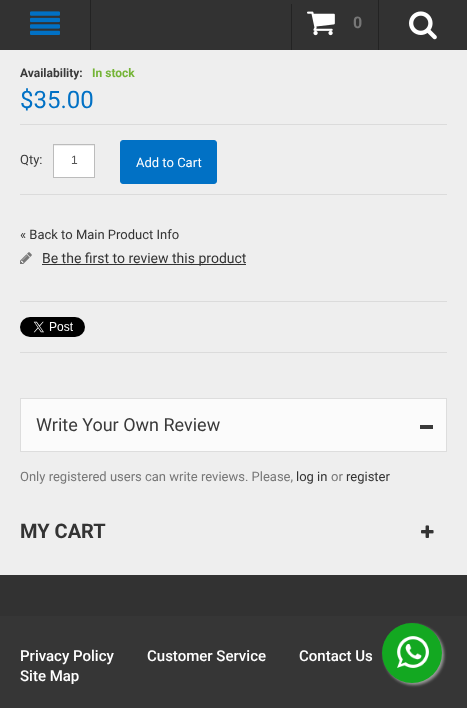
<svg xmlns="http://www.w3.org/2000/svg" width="467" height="708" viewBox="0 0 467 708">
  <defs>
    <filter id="blur1" x="-50%" y="-200%" width="200%" height="500%"><feGaussianBlur stdDeviation="1.5"/></filter>
  </defs>
  <rect width="100%" height="100%" fill="#363636"/>
  <rect x="0" y="0" width="467" height="50" fill="#323232"/>
  <rect x="90" y="0" width="1" height="50" fill="#232323"/>
  <image x="30" y="11" width="30" height="24" href="img1.png"/>
  <rect x="378" y="0" width="1" height="50" fill="#232323"/>
  <image x="409" y="11" width="28" height="29" href="img2.png"/>
  <rect x="291" y="4" width="1" height="46" fill="#232323"/>
  <image x="307" y="11" width="28" height="25" href="img3.png"/>
  <text x="353" y="28" font-family="Roboto" font-size="16" font-weight="bold" fill="#777777">0</text>
  <rect x="0" y="50" width="467" height="525" fill="#eeeeee"/>
  <text x="20" y="77" font-family="Roboto" font-size="12" font-weight="bold" fill="#3a3a3a">Availability:</text>
  <text x="92" y="77" font-family="Roboto" font-size="12" font-weight="bold" fill="#74b436">In stock</text>
  <text x="20" y="108" font-family="Roboto" font-size="24" fill="#0171c5">$35.00</text>
  <rect x="20" y="124" width="427" height="1" fill="#dbdbdb"/>
  <text x="20" y="164" font-family="Roboto" font-size="13" fill="#3a3a3a">Qty:</text>
  <rect x="54" y="146" width="40" height="31" fill="#ffffff"/>
  <rect x="53.5" y="144.5" width="41" height="33" fill="none" stroke="#bcbcbc"/>
  <text x="71" y="164" font-family="Liberation Sans" font-size="12" fill="#555555">1</text>
  <rect x="120.5" y="140.5" width="96" height="43" rx="2.5" fill="#0171c5" stroke="#0171c5"/>
  <text x="136" y="167" font-family="Roboto" font-size="13" fill="#ffffff">Add to Cart</text>
  <rect x="20" y="194" width="427" height="1" fill="#dbdbdb"/>
  <text x="20" y="239" font-family="Roboto" font-size="13" fill="#333333">« Back to Main Product Info</text>
  <rect x="20" y="352" width="427" height="1" fill="#dbdbdb"/>
  <image x="20" y="252" width="12" height="12" href="img4.png"/>
  <rect x="42" y="264" width="204" height="1" fill="#333333"/>
  <text x="42" y="263" font-family="Roboto" font-size="14" fill="#333333">Be the first to review this product</text>
  <rect x="20" y="301" width="427" height="1" fill="#dbdbdb"/>
  <image x="20" y="317" width="65" height="20" href="img5.png"/>
  <rect x="20.5" y="398.5" width="426" height="53" fill="#fbfbfb" stroke="#dddddd"/>
  <text x="36" y="431" font-family="Roboto" font-size="18" fill="#3a3a3a">Write Your Own Review</text>
  <rect x="420" y="425" width="13" height="4" fill="#3a3a3a"/>
  <text x="20" y="481" font-family="Roboto" font-size="13" fill="#777777">Only registered users can write reviews. Please,</text>
  <text x="296" y="481" font-family="Roboto" font-size="13" fill="#333333">log in</text>
  <text x="331" y="481" font-family="Roboto" font-size="13" fill="#777777">or</text>
  <text x="346" y="481" font-family="Roboto" font-size="13" fill="#333333">register</text>
  <text x="20" y="538" font-family="Roboto" font-size="20" font-weight="bold" fill="#333333">MY CART</text>
  <image x="421" y="525" width="13" height="13" href="img6.png"/>
  <rect x="0" y="575" width="467" height="41" fill="#323232"/>
  <text x="20" y="661" font-family="Roboto" font-size="15" font-weight="500" fill="#ffffff">Privacy Policy</text>
  <text x="147" y="661" font-family="Roboto" font-size="15" font-weight="500" fill="#ffffff">Customer Service</text>
  <text x="299" y="661" font-family="Roboto" font-size="15" font-weight="500" fill="#ffffff">Contact Us</text>
  <text x="20" y="681" font-family="Roboto" font-size="15" font-weight="500" fill="#ffffff">Site Map</text>
  <rect x="384" y="625" width="60" height="60" rx="30" fill="#999999" filter="url(#blur1)"/>
  <circle cx="412" cy="653" r="30" fill="#13a821"/>
  <image x="397" y="636" width="32" height="32" href="img7.png"/>
</svg>
